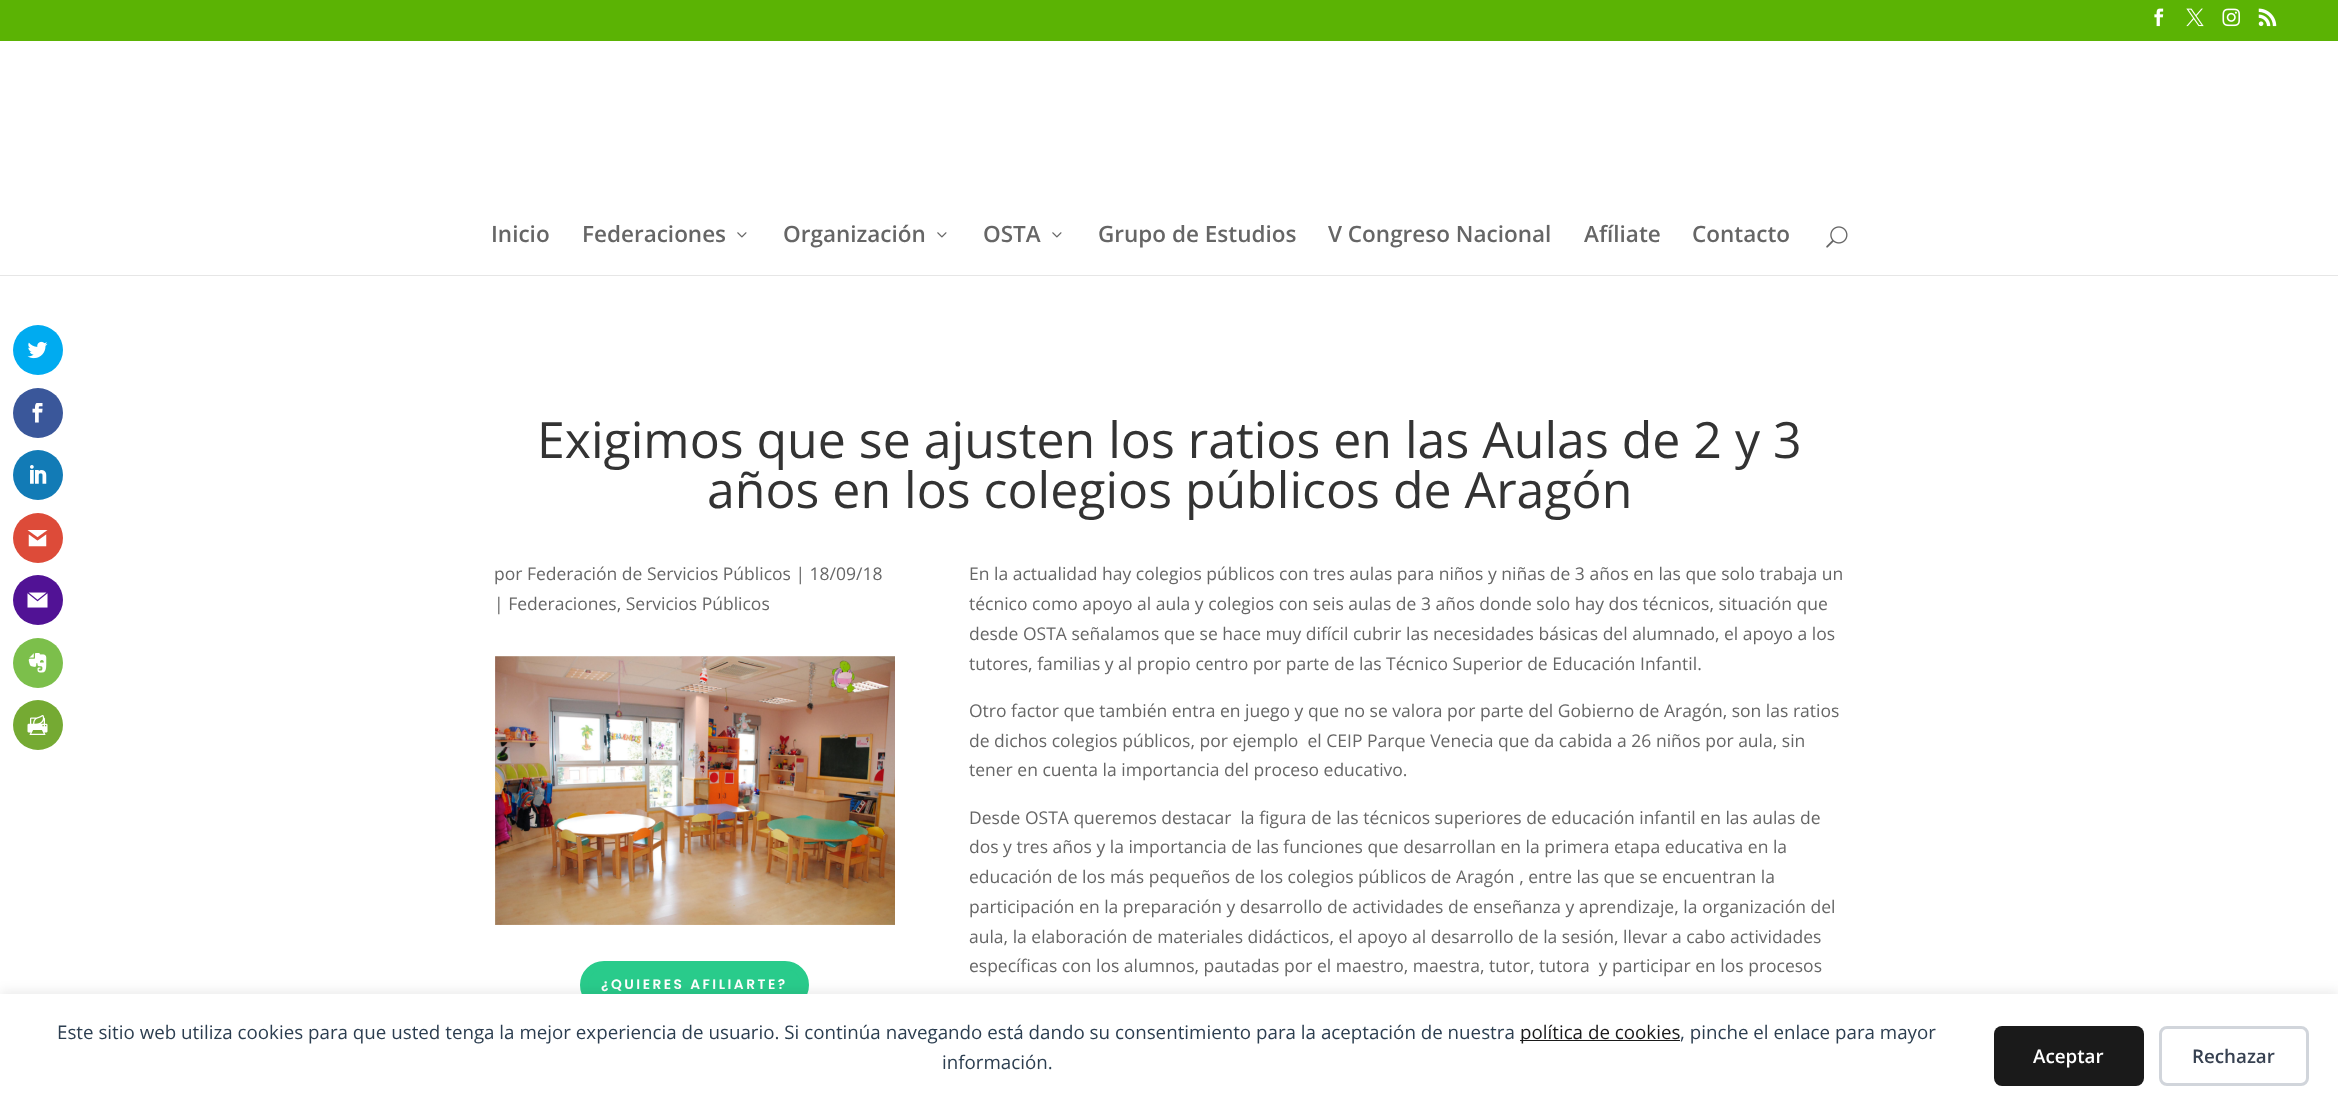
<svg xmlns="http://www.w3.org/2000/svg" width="2338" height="1117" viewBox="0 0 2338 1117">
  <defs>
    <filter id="blur1" x="-50%" y="-200%" width="200%" height="500%"><feGaussianBlur stdDeviation="6"/></filter>
  </defs>
  <rect width="100%" height="100%" fill="#ffffff"/>
  <circle cx="38" cy="350" r="25" fill="#00abf0"/>
  <image x="27" y="341" width="21" height="18" href="img1.png"/>
  <circle cx="38" cy="413" r="25" fill="#3a579a"/>
  <image x="32" y="403" width="11" height="20" href="img2.png"/>
  <circle cx="38" cy="475" r="25" fill="#127bb6"/>
  <image x="30" y="465" width="17" height="19" href="img3.png"/>
  <circle cx="38" cy="538" r="25" fill="#dd4b39"/>
  <image x="27" y="530" width="21" height="17" href="img4.png"/>
  <circle cx="38" cy="600" r="25" fill="#511295"/>
  <image x="27" y="592" width="21" height="16" href="img5.png"/>
  <circle cx="38" cy="663" r="25" fill="#7cbf4b"/>
  <image x="28" y="653" width="19" height="20" href="img6.png"/>
  <circle cx="38" cy="725" r="25" fill="#75aa33"/>
  <image x="27" y="715" width="21" height="20" href="img7.png"/>
  <rect x="0" y="0" width="2338" height="41" fill="#5bb304"/>
  <image x="2154" y="8" width="10" height="19" href="img8.png"/>
  <image x="2186" y="8" width="18" height="19" href="img9.png"/>
  <image x="2222" y="8" width="18" height="19" href="img10.png"/>
  <image x="2258" y="8" width="19" height="19" href="img11.png"/>
  <path d="M0 275V276H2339V43V275Z" fill="#e6e6e6"/>
  <text x="491" y="242" font-family="Open Sans" font-size="22.5" font-weight="600" fill="#666666">Inicio</text>
  <text x="582" y="242" font-family="Open Sans" font-size="22.5" font-weight="600" fill="#666666">Federaciones</text>
  <image x="737" y="232" width="10" height="6" href="img12.png"/>
  <text x="783" y="242" font-family="Open Sans" font-size="22.5" font-weight="600" fill="#666666">Organización</text>
  <image x="937" y="232" width="10" height="6" href="img12.png"/>
  <text x="983" y="242" font-family="Open Sans" font-size="22.5" font-weight="600" fill="#666666">OSTA</text>
  <image x="1052" y="232" width="10" height="6" href="img12.png"/>
  <text x="1098" y="242" font-family="Open Sans" font-size="22.5" font-weight="600" fill="#666666">Grupo de Estudios</text>
  <text x="1328" y="242" font-family="Open Sans" font-size="22.5" font-weight="600" fill="#666666">V Congreso Nacional</text>
  <text x="1584" y="242" font-family="Open Sans" font-size="22.5" font-weight="600" fill="#666666">Afíliate</text>
  <text x="1692" y="242" font-family="Open Sans" font-size="22.5" font-weight="600" fill="#666666">Contacto</text>
  <image x="1826" y="226" width="22" height="22" href="img13.png"/>
  <text x="537" y="458" font-family="Open Sans" font-size="50" fill="#333333">Exigimos que se ajusten los ratios en las Aulas de 2 y 3</text>
  <text x="707" y="508" font-family="Open Sans" font-size="50" fill="#333333">años en los colegios públicos de Aragón</text>
  <text x="494" y="580" font-family="Open Sans" font-size="17.5" fill="#666666">por Federación de Servicios Públicos | 18/09/18</text>
  <text x="494" y="610" font-family="Open Sans" font-size="17.5" fill="#666666">| Federaciones, Servicios Públicos</text>
  <image x="495" y="656" width="400" height="269" href="img14.png"/>
  <rect x="584" y="965" width="221" height="40" rx="20" fill="#29cb8b" stroke="#29cb8b" stroke-width="8"/>
  <text x="601" y="989" font-family="Poppins" font-size="13.75" font-weight="600" letter-spacing="2.5" fill="#ffffff">¿QUIERES AFILIARTE?</text>
  <text x="969" y="580" font-family="Open Sans" font-size="17.5" fill="#666666">En la actualidad hay colegios públicos con tres aulas para niños y niñas de 3 años en las que solo trabaja un</text>
  <text x="969" y="610" font-family="Open Sans" font-size="17.5" fill="#666666">técnico como apoyo al aula y colegios con seis aulas de 3 años donde solo hay dos técnicos, situación que</text>
  <text x="969" y="640" font-family="Open Sans" font-size="17.5" fill="#666666">desde OSTA señalamos que se hace muy difícil cubrir las necesidades básicas del alumnado, el apoyo a los</text>
  <text x="969" y="670" font-family="Open Sans" font-size="17.5" fill="#666666">tutores, familias y al propio centro por parte de las Técnico Superior de Educación Infantil.</text>
  <text x="969" y="717" font-family="Open Sans" font-size="17.5" fill="#666666">Otro factor que también entra en juego y que no se valora por parte del Gobierno de Aragón, son las ratios</text>
  <text x="969" y="747" font-family="Open Sans" font-size="17.5" fill="#666666" xml:space="preserve">de dichos colegios públicos, por ejemplo  el CEIP Parque Venecia que da cabida a 26 niños por aula, sin</text>
  <text x="969" y="776" font-family="Open Sans" font-size="17.5" fill="#666666">tener en cuenta la importancia del proceso educativo.</text>
  <text x="969" y="824" font-family="Open Sans" font-size="17.5" fill="#666666" xml:space="preserve">Desde OSTA queremos destacar  la figura de las técnicos superiores de educación infantil en las aulas de</text>
  <text x="969" y="853" font-family="Open Sans" font-size="17.5" fill="#666666">dos y tres años y la importancia de las funciones que desarrollan en la primera etapa educativa en la</text>
  <text x="969" y="883" font-family="Open Sans" font-size="17.5" fill="#666666">educación de los más pequeños de los colegios públicos de Aragón , entre las que se encuentran la</text>
  <text x="969" y="913" font-family="Open Sans" font-size="17.5" fill="#666666">participación en la preparación y desarrollo de actividades de enseñanza y aprendizaje, la organización del</text>
  <text x="969" y="943" font-family="Open Sans" font-size="17.5" fill="#666666">aula, la elaboración de materiales didácticos, el apoyo al desarrollo de la sesión, llevar a cabo actividades</text>
  <text x="969" y="972" font-family="Open Sans" font-size="17.5" fill="#666666" xml:space="preserve">específicas con los alumnos, pautadas por el maestro, maestra, tutor, tutora  y participar en los procesos</text>
  <rect x="0" y="991" width="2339" height="124" fill="#000000" fill-opacity="0.08" filter="url(#blur1)"/>
  <rect x="0" y="994" width="2338" height="123" fill="#ffffff"/>
  <text x="57" y="1039" font-family="Open Sans" font-size="18.75" fill="#2c3e50">Este sitio web utiliza cookies para que usted tenga la mejor experiencia de usuario. Si continúa navegando está dando su consentimiento para la aceptación de nuestra</text>
  <rect x="1520" y="1040" width="160" height="1" fill="#1a1a1a"/>
  <text x="1520" y="1039" font-family="Open Sans" font-size="18.75" fill="#1a1a1a">política de cookies</text>
  <text x="1680" y="1039" font-family="Open Sans" font-size="18.75" fill="#2c3e50">, pinche el enlace para mayor</text>
  <text x="942" y="1069" font-family="Open Sans" font-size="18.75" fill="#2c3e50">información.</text>
  <rect x="1994" y="1026" width="150" height="60" rx="8" fill="#1a1a1a"/>
  <text x="2033" y="1063" font-family="Open Sans" font-size="18.75" font-weight="600" fill="#ffffff">Aceptar</text>
  <rect x="2160.5" y="1027.5" width="147" height="57" rx="6.5" fill="none" stroke="#d1d5db" stroke-width="3"/>
  <text x="2192" y="1063" font-family="Open Sans" font-size="18.75" font-weight="600" fill="#374151">Rechazar</text>
</svg>
